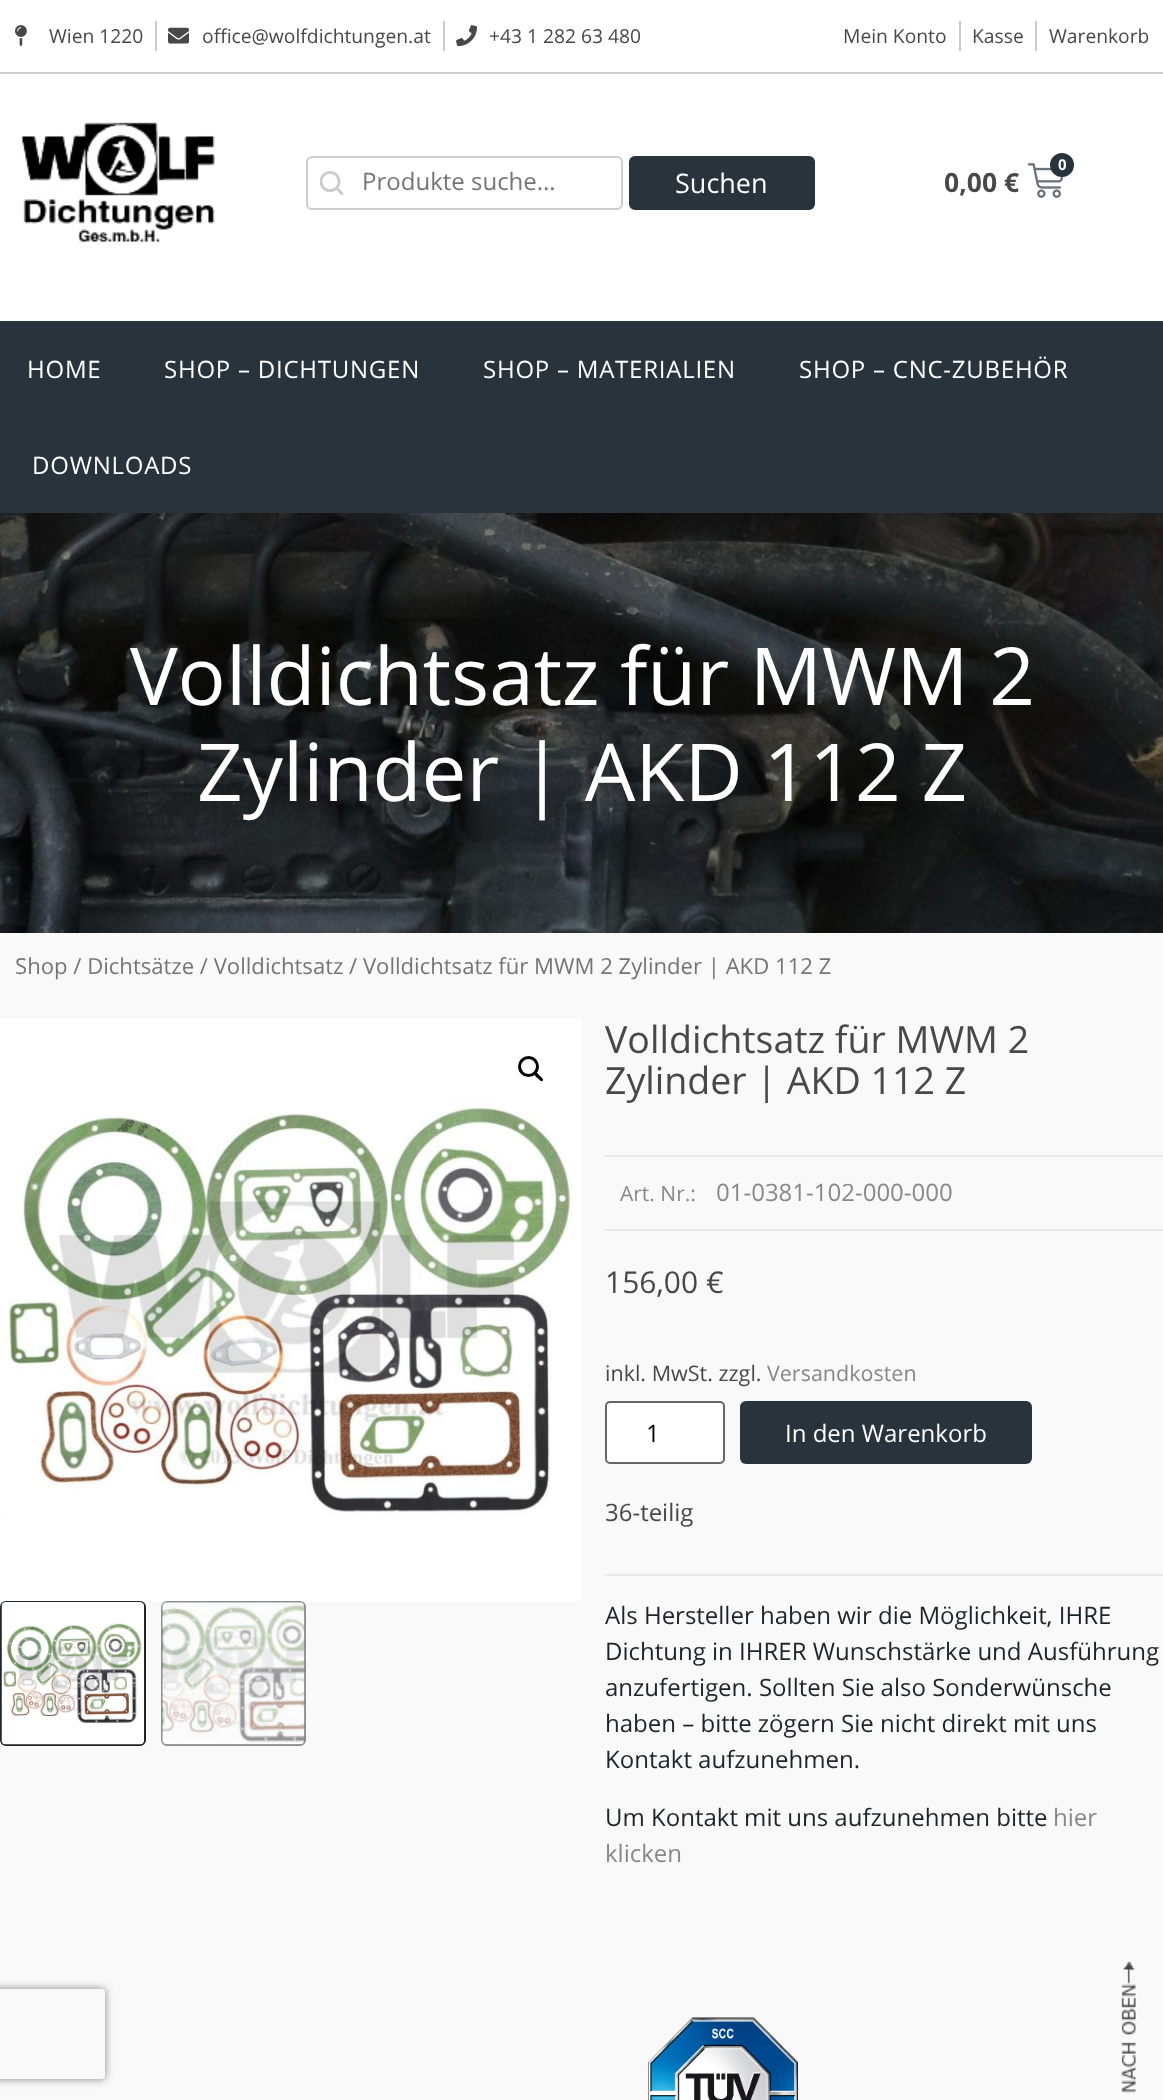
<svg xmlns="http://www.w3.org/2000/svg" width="1163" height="2100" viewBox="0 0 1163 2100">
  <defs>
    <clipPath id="clip1"><path d="M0 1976H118V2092H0ZM-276 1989H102C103.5 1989 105 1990.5 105 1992V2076C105 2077.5 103.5 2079 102 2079H-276C-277.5 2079-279 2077.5-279 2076V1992C-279 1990.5-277.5 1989-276 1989Z" clip-rule="evenodd"/></clipPath>
    <filter id="blur1" x="-50%" y="-200%" width="200%" height="500%"><feGaussianBlur stdDeviation="4"/></filter>
  </defs>
  <rect width="100%" height="100%" fill="#f9f9f9"/>
  <rect x="0" y="0" width="1163" height="72" fill="#ffffff"/>
  <rect x="0" y="72" width="1163" height="2" fill="#cccccc"/>
  <image x="15" y="25" width="12" height="22" href="img1.png"/>
  <text x="49" y="43" font-family="Open Sans" font-size="19.25" fill="#484848">Wien 1220</text>
  <rect x="155" y="21" width="2" height="30" fill="#cccccc"/>
  <image x="168" y="27" width="21" height="17" href="img2.png"/>
  <text x="202" y="43" font-family="Open Sans" font-size="19.25" fill="#484848">office@wolfdichtungen.at</text>
  <rect x="443" y="21" width="2" height="30" fill="#cccccc"/>
  <image x="456" y="25" width="21" height="22" href="img3.png"/>
  <text x="489" y="43" font-family="Open Sans" font-size="19.25" fill="#484848">+43 1 282 63 480</text>
  <text x="843" y="43" font-family="Open Sans" font-size="19.25" fill="#484848">Mein Konto</text>
  <rect x="959" y="21" width="2" height="30" fill="#cccccc"/>
  <text x="972" y="43" font-family="Open Sans" font-size="19.25" fill="#484848">Kasse</text>
  <rect x="1035" y="21" width="2" height="30" fill="#cccccc"/>
  <text x="1049" y="43" font-family="Open Sans" font-size="19.25" fill="#484848">Warenkorb</text>
  <rect x="0" y="74" width="1163" height="247" fill="#ffffff"/>
  <image x="21" y="122" width="194" height="121" href="img4.png"/>
  <rect x="307" y="157" width="315" height="52" rx="5" fill="none" stroke="#cccccc" stroke-width="2"/>
  <image x="320" y="171" width="24" height="24" href="img5.png"/>
  <text x="362" y="190" font-family="Open Sans" font-size="24" fill="#757575">Produkte suche…</text>
  <rect x="630" y="157" width="184" height="52" rx="5" fill="#28333b" stroke="#28333b" stroke-width="2"/>
  <text x="675" y="193" font-family="Open Sans" font-size="27" fill="#ffffff">Suchen</text>
  <image x="1027" y="163" width="37" height="35" href="img6.png"/>
  <circle cx="1062" cy="165" r="12" fill="#28333b"/>
  <text x="1058" y="170" font-family="Open Sans" font-size="15" font-weight="bold" fill="#ffffff">0</text>
  <text x="944" y="192" font-family="Open Sans" font-size="26.5" font-weight="bold" fill="#484848">0,00 €</text>
  <rect x="0" y="321" width="1163" height="192" fill="#28333b"/>
  <text x="27" y="378" font-family="Open Sans" font-size="24" letter-spacing="0.75" fill="#ffffff">HOME</text>
  <text x="164" y="378" font-family="Open Sans" font-size="24" letter-spacing="0.75" fill="#ffffff">SHOP – DICHTUNGEN</text>
  <text x="483" y="378" font-family="Open Sans" font-size="24" letter-spacing="0.75" fill="#ffffff">SHOP – MATERIALIEN</text>
  <text x="799" y="378" font-family="Open Sans" font-size="24" letter-spacing="0.75" fill="#ffffff">SHOP – CNC-ZUBEHÖR</text>
  <text x="32" y="474" font-family="Open Sans" font-size="24" letter-spacing="0.75" fill="#ffffff">DOWNLOADS</text>
  <image x="0" y="513" width="1163" height="420" href="img7.png"/>
  <text x="130" y="705" font-family="Open Sans" font-size="80" fill="#ffffff">Volldichtsatz für MWM 2</text>
  <text x="197" y="801" font-family="Open Sans" font-size="80" fill="#ffffff">Zylinder | AKD 112 Z</text>
  <text x="15" y="974" font-family="Open Sans" font-size="22.1" fill="#757575">Shop / Dichtsätze / Volldichtsatz / Volldichtsatz für MWM 2 Zylinder | AKD 112 Z</text>
  <image x="0" y="1019" width="582" height="582" href="img8.png"/>
  <circle cx="528.5" cy="1066.5" r="9" fill="none" stroke="#000000" stroke-width="3"/>
  <path d="M534.5 1072.5C536 1070.5 538.5 1074.5 539.5 1075.5C540.5 1076.5 544.5 1079 542.5 1081C541 1082.5 538.5 1078.5 537.5 1078C536.5 1077 532.5 1074 534.5 1072.5Z" fill="#000000"/>
  <rect x="1" y="1602" width="144" height="143" rx="5" fill="none" stroke="#1d242a" stroke-width="2"/>
  <image x="1" y="1602" width="143" height="143" href="img9.png"/>
  <rect x="162" y="1602" width="143" height="143" rx="5" fill="none" stroke="#8b8f92" stroke-width="2"/>
  <image x="162" y="1602" width="143" height="143" href="img10.png"/>
  <text x="605" y="1053" font-family="Open Sans" font-size="37.5" fill="#484848">Volldichtsatz für MWM 2</text>
  <text x="605" y="1094" font-family="Open Sans" font-size="37.5" fill="#484848">Zylinder | AKD 112 Z</text>
  <rect x="605" y="1155" width="558" height="2" fill="#e9e9e9"/>
  <rect x="605" y="1229" width="558" height="2" fill="#e9e9e9"/>
  <text x="620" y="1201" font-family="Open Sans" font-size="21" fill="#888888">Art. Nr.:</text>
  <text x="716" y="1201" font-family="Open Sans" font-size="24" fill="#888888">01-0381-102-000-000</text>
  <text x="605" y="1293" font-family="Open Sans" font-size="30" fill="#484848">156,00 €</text>
  <text x="605" y="1381" font-family="Open Sans" font-size="21.5" fill="#484848">inkl. MwSt. zzgl.</text>
  <text x="767" y="1381" font-family="Open Sans" font-size="21.5" fill="#888888">Versandkosten</text>
  <rect x="606" y="1402" width="118" height="61" rx="4" fill="#ffffff" stroke="#666666" stroke-width="2"/>
  <text x="646" y="1442" font-family="Open Sans" font-size="24" fill="#000000">1</text>
  <rect x="740" y="1401" width="292" height="63" rx="6" fill="#28333b"/>
  <text x="785" y="1442" font-family="Open Sans" font-size="24" fill="#ffffff">In den Warenkorb</text>
  <text x="605" y="1521" font-family="Open Sans" font-size="24" fill="#484848">36-teilig</text>
  <rect x="605" y="1574" width="558" height="2" fill="#e9e9e9"/>
  <text x="605" y="1624" font-family="Open Sans" font-size="24" fill="#1d242a">Als Hersteller haben wir die Möglichkeit, IHRE</text>
  <text x="605" y="1660" font-family="Open Sans" font-size="24" fill="#1d242a">Dichtung in IHRER Wunschstärke und Ausführung</text>
  <text x="605" y="1696" font-family="Open Sans" font-size="24" fill="#1d242a">anzufertigen. Sollten Sie also Sonderwünsche</text>
  <text x="605" y="1732" font-family="Open Sans" font-size="24" fill="#1d242a">haben – bitte zögern Sie nicht direkt mit uns</text>
  <text x="605" y="1768" font-family="Open Sans" font-size="24" fill="#1d242a">Kontakt aufzunehmen.</text>
  <text x="605" y="1826" font-family="Open Sans" font-size="24" fill="#1d242a">Um Kontakt mit uns aufzunehmen bitte</text>
  <text x="1053" y="1826" font-family="Open Sans" font-size="24" fill="#888888">hier</text>
  <text x="605" y="1862" font-family="Open Sans" font-size="24" fill="#888888">klicken</text>
  <image x="648" y="2017" width="150" height="83" href="img11.png"/>
  <g clip-path="url(#clip1)">
    <rect x="-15" y="1989" width="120" height="90" rx="3" fill="#808080" filter="url(#blur1)"/>
  </g>
  <image x="1120" y="1961" width="17" height="132" href="img12.png"/>
</svg>
